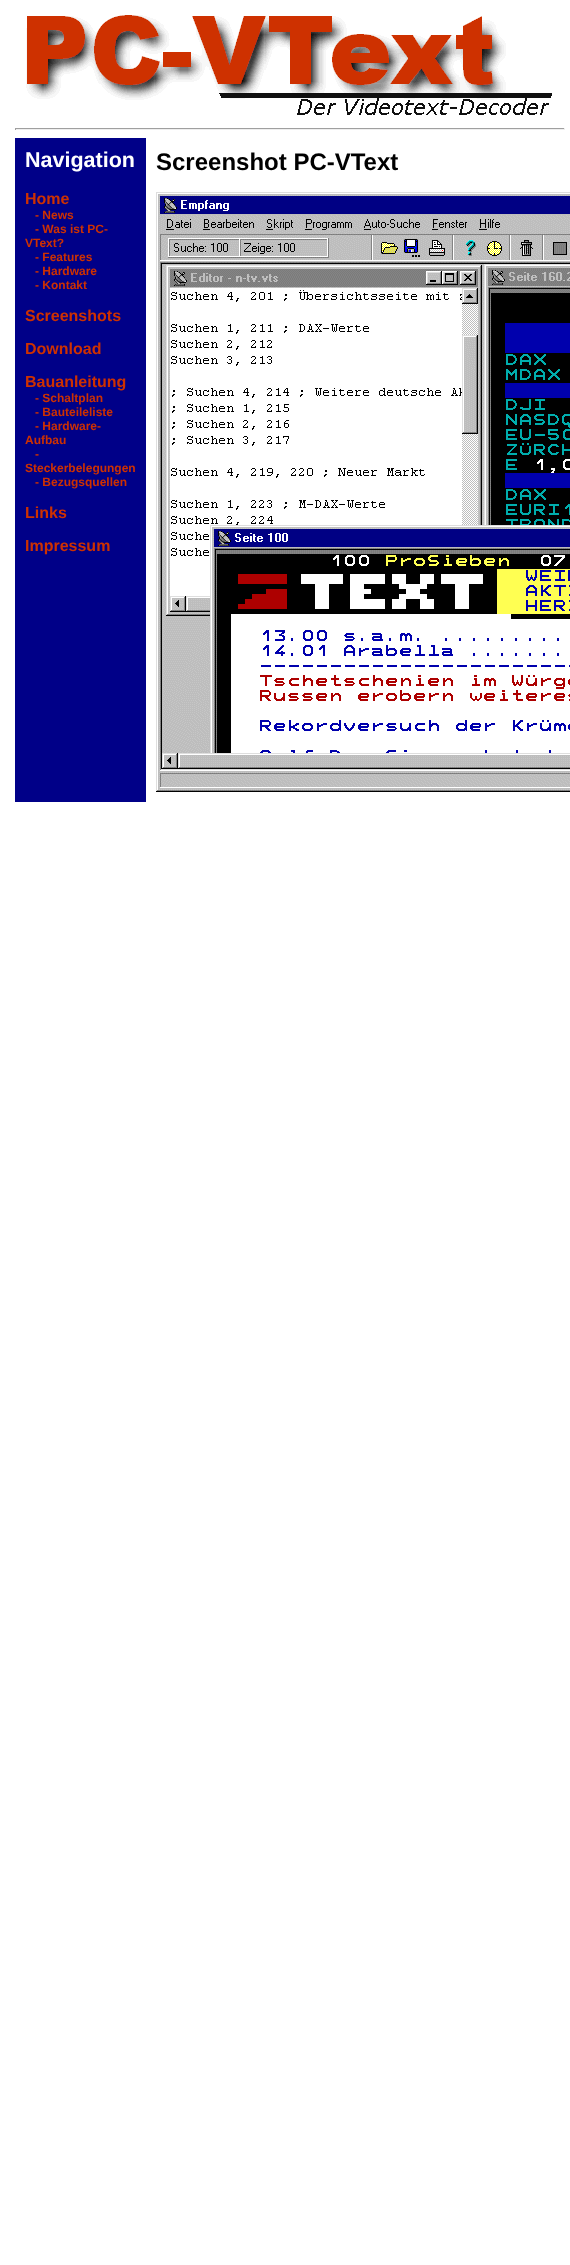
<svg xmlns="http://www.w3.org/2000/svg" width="570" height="2265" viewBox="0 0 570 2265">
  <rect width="100%" height="100%" fill="#ffffff"/>
  <image x="26" y="15" width="526" height="100" href="img1.png"/>
  <rect x="15" y="128" width="550" height="1" fill="#9f9f9f"/>
  <rect x="564" y="128" width="1" height="2" fill="#eeeeee"/>
  <rect x="15" y="129" width="550" height="1" fill="#eeeeee"/>
  <rect x="15" y="128" width="1" height="2" fill="#9f9f9f"/>
  <rect x="15" y="138" width="131" height="664" fill="#000088"/>
  <text x="25" y="167" font-family="Liberation Sans" font-size="21.5" font-weight="bold" fill="#ffffff">Navigation</text>
  <text x="25" y="204" font-family="Liberation Sans" font-size="16" font-weight="bold" fill="#ce3100">Home</text>
  <text x="35" y="219" font-family="Liberation Sans" font-size="12" font-weight="bold" fill="#ce3100">- News</text>
  <text x="35" y="233" font-family="Liberation Sans" font-size="12" font-weight="bold" fill="#ce3100">- Was ist PC-</text>
  <text x="25" y="247" font-family="Liberation Sans" font-size="12" font-weight="bold" fill="#ce3100">VText?</text>
  <text x="35" y="261" font-family="Liberation Sans" font-size="12" font-weight="bold" fill="#ce3100">- Features</text>
  <text x="35" y="275" font-family="Liberation Sans" font-size="12" font-weight="bold" fill="#ce3100">- Hardware</text>
  <text x="35" y="289" font-family="Liberation Sans" font-size="12" font-weight="bold" fill="#ce3100">- Kontakt</text>
  <text x="25" y="321" font-family="Liberation Sans" font-size="16" font-weight="bold" fill="#ce3100">Screenshots</text>
  <text x="25" y="354" font-family="Liberation Sans" font-size="16" font-weight="bold" fill="#ce3100">Download</text>
  <text x="25" y="387" font-family="Liberation Sans" font-size="16" font-weight="bold" fill="#ce3100">Bauanleitung</text>
  <text x="35" y="402" font-family="Liberation Sans" font-size="12" font-weight="bold" fill="#ce3100">- Schaltplan</text>
  <text x="35" y="416" font-family="Liberation Sans" font-size="12" font-weight="bold" fill="#ce3100">- Bauteileliste</text>
  <text x="35" y="430" font-family="Liberation Sans" font-size="12" font-weight="bold" fill="#ce3100">- Hardware-</text>
  <text x="25" y="444" font-family="Liberation Sans" font-size="12" font-weight="bold" fill="#ce3100">Aufbau</text>
  <text x="35" y="458" font-family="Liberation Sans" font-size="12" font-weight="bold" fill="#ce3100">-</text>
  <text x="25" y="472" font-family="Liberation Sans" font-size="12" font-weight="bold" fill="#ce3100">Steckerbelegungen</text>
  <text x="35" y="486" font-family="Liberation Sans" font-size="12" font-weight="bold" fill="#ce3100">- Bezugsquellen</text>
  <text x="25" y="518" font-family="Liberation Sans" font-size="16" font-weight="bold" fill="#ce3100">Links</text>
  <text x="25" y="551" font-family="Liberation Sans" font-size="16" font-weight="bold" fill="#ce3100">Impressum</text>
  <text x="156" y="170" font-family="Liberation Sans" font-size="24" font-weight="bold" fill="#000000">Screenshot PC-VText</text>
  <image x="156" y="192" width="414" height="600" href="img2.png"/>
</svg>
